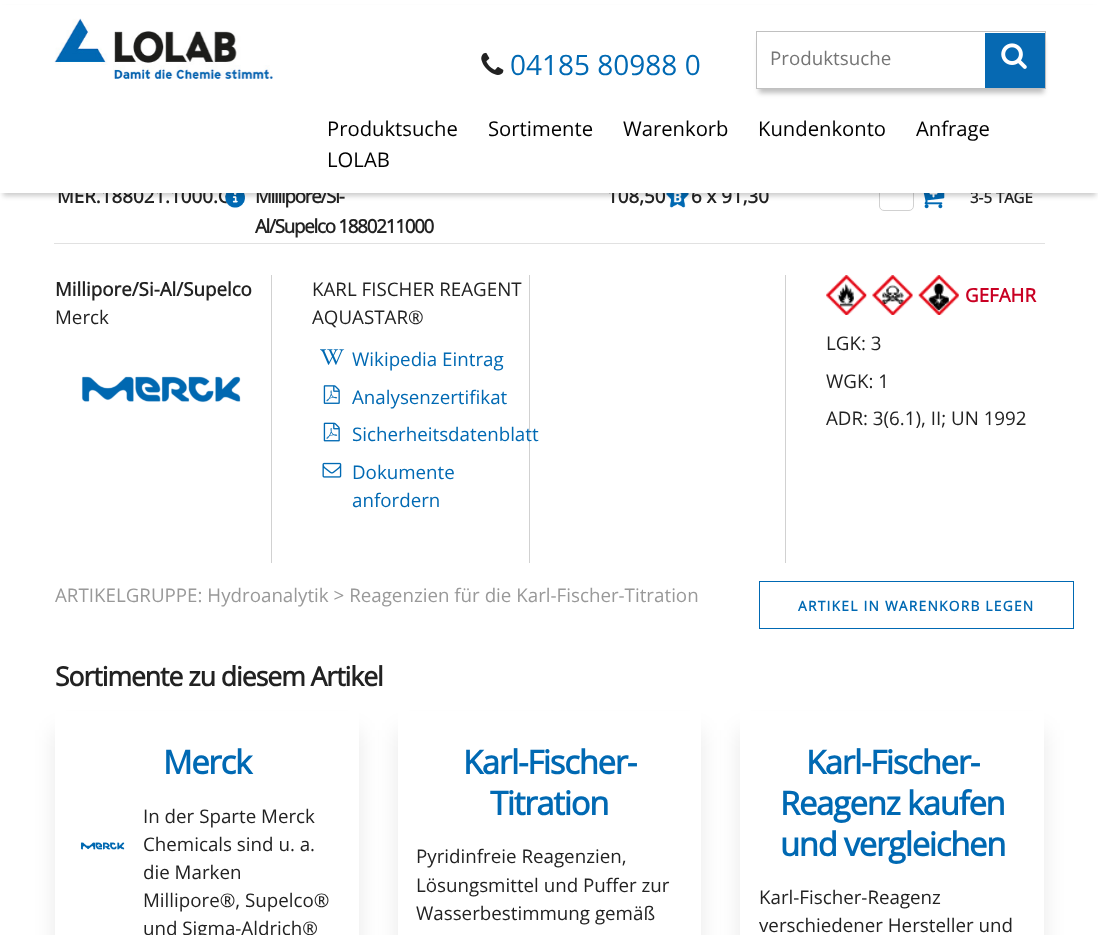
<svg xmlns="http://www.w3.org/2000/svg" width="1098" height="935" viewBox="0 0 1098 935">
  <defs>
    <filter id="blur1" x="-50%" y="-200%" width="200%" height="500%"><feGaussianBlur stdDeviation="2.5"/></filter>
    <clipPath id="clip1"><path d="M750 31H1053V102H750ZM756 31H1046V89H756Z" clip-rule="evenodd"/></clipPath>
    <clipPath id="clip2"><path d="M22 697H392V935H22ZM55 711H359V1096H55Z" clip-rule="evenodd"/></clipPath>
    <filter id="blur2" x="-50%" y="-200%" width="200%" height="500%"><feGaussianBlur stdDeviation="10.5"/></filter>
    <clipPath id="clip3"><path d="M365 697H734V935H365ZM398 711H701V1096H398Z" clip-rule="evenodd"/></clipPath>
    <clipPath id="clip4"><path d="M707 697H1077V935H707ZM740 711H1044V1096H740Z" clip-rule="evenodd"/></clipPath>
  </defs>
  <rect width="100%" height="100%" fill="#ffffff"/>
  <text x="57" y="203" font-family="Open Sans" font-size="18.75" font-weight="bold" fill="#222222">MER.188021.1000.G</text>
  <image x="225" y="193" width="20" height="15" href="img4.png"/>
  <image x="666" y="193" width="23" height="15" href="img5.png"/>
  <rect x="879.5" y="184.5" width="34" height="26" rx="4.5" fill="none" stroke="#d1d1d1"/>
  <image x="923" y="193" width="22" height="16" href="img6.png"/>
  <rect x="3" y="9" width="1093" height="187" fill="#000000" fill-opacity="0.2" filter="url(#blur1)"/>
  <text x="255" y="203" font-family="Open Sans" font-size="18.75" font-weight="bold" letter-spacing="-1.25" fill="#222222">Millipore/Si-</text>
  <text x="607" y="203" font-family="Open Sans" font-size="18.75" font-weight="bold" fill="#222222">108,50</text>
  <text x="691" y="203" font-family="Open Sans" font-size="18.75" font-weight="bold" fill="#222222">6 x 91,30</text>
  <text x="970" y="203" font-family="Open Sans" font-size="15" font-weight="bold" fill="#222222">3-5 TAGE</text>
  <rect x="0" y="5" width="1098" height="188" fill="#ffffff"/>
  <image x="54" y="18" width="219" height="61" href="img1.png"/>
  <image x="481" y="52" width="23" height="23" href="img2.png"/>
  <text x="510" y="75" font-family="Open Sans" font-size="28" fill="#0069b3">04185 80988 0</text>
  <g clip-path="url(#clip1)">
    <rect x="759" y="40" width="285" height="53" fill="#000000" fill-opacity="0.25" filter="url(#blur1)"/>
  </g>
  <rect x="756.5" y="31.5" width="289" height="57" fill="none" stroke="#c0c0c0"/>
  <text x="770" y="65" font-family="Open Sans" font-size="18.75" fill="#757575">Produktsuche</text>
  <rect x="985" y="33" width="60" height="55" fill="#0669b2"/>
  <image x="1001" y="43" width="26" height="26" href="img3.png"/>
  <text x="327" y="136" font-family="Open Sans" font-size="20.25" fill="#000000">Produktsuche</text>
  <text x="488" y="136" font-family="Open Sans" font-size="20.25" fill="#000000">Sortimente</text>
  <text x="623" y="136" font-family="Open Sans" font-size="20.25" fill="#000000">Warenkorb</text>
  <text x="758" y="136" font-family="Open Sans" font-size="20.25" fill="#000000">Kundenkonto</text>
  <text x="916" y="136" font-family="Open Sans" font-size="20.25" fill="#000000">Anfrage</text>
  <text x="327" y="167" font-family="Open Sans" font-size="20.25" fill="#000000">LOLAB</text>
  <text x="255" y="233" font-family="Open Sans" font-size="18.75" font-weight="bold" letter-spacing="-1.25" fill="#222222">Al/Supelco 1880211000</text>
  <rect x="54" y="243" width="991" height="1" fill="#e1e1e1"/>
  <rect x="271" y="275" width="1" height="288" fill="#d1d1d1"/>
  <text x="55" y="296" font-family="Open Sans" font-size="18.75" font-weight="bold" fill="#222222">Millipore/Si-Al/Supelco</text>
  <text x="55" y="324" font-family="Open Sans" font-size="18.75" fill="#222222">Merck</text>
  <image x="81" y="376" width="160" height="27" href="img7.png"/>
  <rect x="529" y="275" width="1" height="288" fill="#d1d1d1"/>
  <text x="312" y="296" font-family="Open Sans" font-size="18.75" fill="#222222">KARL FISCHER REAGENT</text>
  <text x="312" y="324" font-family="Open Sans" font-size="18.75" fill="#222222">AQUASTAR®</text>
  <image x="320" y="349" width="25" height="16" href="img8.png"/>
  <text x="352" y="366" font-family="Open Sans" font-size="18.75" fill="#0069b3">Wikipedia Eintrag</text>
  <image x="323" y="385" width="17" height="19" href="img9.png"/>
  <text x="352" y="404" font-family="Open Sans" font-size="18.75" fill="#0069b3">Analysenzertifikat</text>
  <image x="323" y="422" width="17" height="20" href="img10.png"/>
  <text x="352" y="441" font-family="Open Sans" font-size="18.75" fill="#0069b3">Sicherheitsdatenblatt</text>
  <image x="322" y="462" width="20" height="16" href="img11.png"/>
  <text x="352" y="479" font-family="Open Sans" font-size="18.75" fill="#0069b3">Dokumente</text>
  <text x="352" y="507" font-family="Open Sans" font-size="18.75" fill="#0069b3">anfordern</text>
  <rect x="785" y="275" width="1" height="288" fill="#d1d1d1"/>
  <image x="826" y="275" width="41" height="40" href="img12.png"/>
  <image x="872" y="275" width="41" height="40" href="img13.png"/>
  <image x="918" y="275" width="41" height="40" href="img14.png"/>
  <text x="965" y="302" font-family="Open Sans" font-size="18.75" font-weight="bold" fill="#c90023">GEFAHR</text>
  <text x="826" y="350" font-family="Open Sans" font-size="18.75" fill="#222222">LGK: 3</text>
  <text x="826" y="388" font-family="Open Sans" font-size="18.75" fill="#222222">WGK: 1</text>
  <text x="826" y="425" font-family="Open Sans" font-size="18.75" fill="#222222">ADR: 3(6.1), II; UN 1992</text>
  <text x="55" y="602" font-family="Open Sans" font-size="18.75" fill="#999999">ARTIKELGRUPPE: Hydroanalytik &gt; Reagenzien für die Karl-Fischer-Titration</text>
  <rect x="759.5" y="581.5" width="314" height="47" fill="none" stroke="#0069b3"/>
  <text x="798" y="611" font-family="Open Sans" font-size="13.75" font-weight="bold" letter-spacing="1.25" fill="#0069b3">ARTIKEL IN WARENKORB LEGEN</text>
  <text x="55" y="686" font-family="Open Sans" font-size="26.5" font-weight="bold" letter-spacing="-1" fill="#222222">Sortimente zu diesem Artikel</text>
  <g clip-path="url(#clip2)">
    <rect x="55" y="730" width="304" height="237" fill="#000000" fill-opacity="0.09" filter="url(#blur2)"/>
  </g>
  <text x="163" y="774" font-family="Open Sans" font-size="32.75" font-weight="bold" letter-spacing="-1.25" fill="#0069b3">Merck</text>
  <image x="80" y="842" width="45" height="8" href="img15.png"/>
  <text x="143" y="823" font-family="Open Sans" font-size="18.75" fill="#222222">In der Sparte Merck</text>
  <text x="143" y="851" font-family="Open Sans" font-size="18.75" fill="#222222">Chemicals sind u. a.</text>
  <text x="143" y="879" font-family="Open Sans" font-size="18.75" fill="#222222">die Marken</text>
  <text x="143" y="907" font-family="Open Sans" font-size="18.75" fill="#222222">Millipore®, Supelco®</text>
  <text x="143" y="935" font-family="Open Sans" font-size="18.75" fill="#222222">und Sigma-Aldrich®</text>
  <g clip-path="url(#clip3)">
    <rect x="398" y="730" width="303" height="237" fill="#000000" fill-opacity="0.09" filter="url(#blur2)"/>
  </g>
  <text x="463" y="774" font-family="Open Sans" font-size="32.75" font-weight="bold" letter-spacing="-1.25" fill="#0069b3">Karl-Fischer-</text>
  <text x="490" y="815" font-family="Open Sans" font-size="32.75" font-weight="bold" letter-spacing="-1.25" fill="#0069b3">Titration</text>
  <text x="416" y="863" font-family="Open Sans" font-size="18.75" fill="#222222">Pyridinfreie Reagenzien,</text>
  <text x="416" y="892" font-family="Open Sans" font-size="18.75" fill="#222222">Lösungsmittel und Puffer zur</text>
  <text x="416" y="920" font-family="Open Sans" font-size="18.75" fill="#222222">Wasserbestimmung gemäß</text>
  <g clip-path="url(#clip4)">
    <rect x="740" y="730" width="304" height="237" fill="#000000" fill-opacity="0.09" filter="url(#blur2)"/>
  </g>
  <text x="806" y="774" font-family="Open Sans" font-size="32.75" font-weight="bold" letter-spacing="-1.25" fill="#0069b3">Karl-Fischer-</text>
  <text x="780" y="815" font-family="Open Sans" font-size="32.75" font-weight="bold" letter-spacing="-1.25" fill="#0069b3">Reagenz kaufen</text>
  <text x="780" y="856" font-family="Open Sans" font-size="32.75" font-weight="bold" letter-spacing="-1.25" fill="#0069b3">und vergleichen</text>
  <text x="759" y="904" font-family="Open Sans" font-size="18.75" fill="#222222">Karl-Fischer-Reagenz</text>
  <text x="759" y="932" font-family="Open Sans" font-size="18.75" fill="#222222">verschiedener Hersteller und</text>
</svg>
